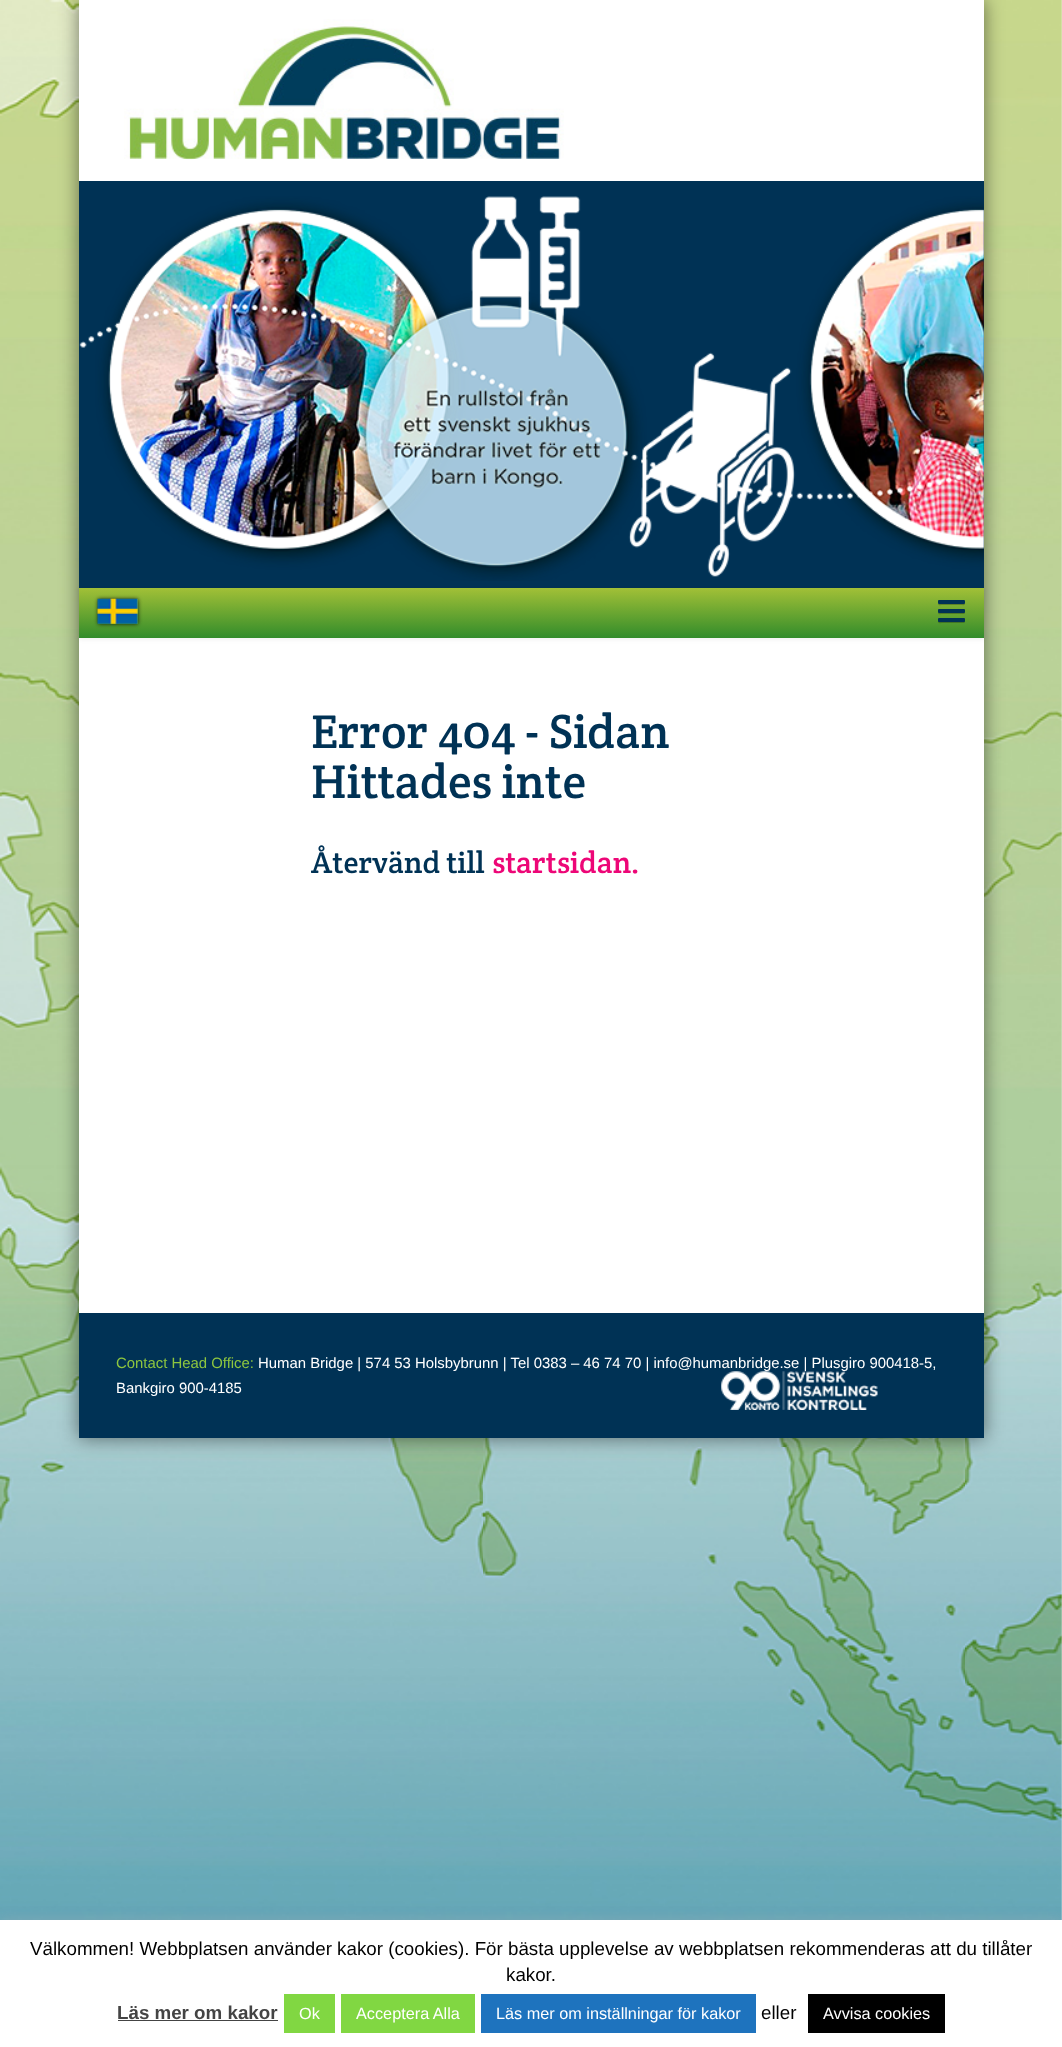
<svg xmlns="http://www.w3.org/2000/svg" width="1062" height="2047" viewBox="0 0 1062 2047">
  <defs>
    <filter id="blur1" x="-50%" y="-200%" width="200%" height="500%"><feGaussianBlur stdDeviation="9.5"/></filter>
    <filter id="blur2" x="-50%" y="-200%" width="200%" height="500%"><feGaussianBlur stdDeviation="2.5"/></filter>
    <linearGradient id="g1" gradientUnits="userSpaceOnUse" x1="531" y1="587" x2="531" y2="638"><stop offset="0" stop-color="#a4c137"/><stop offset="1" stop-color="#328c2b"/></linearGradient>
    <clipPath id="clip1"><path d="M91 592H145V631H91ZM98 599H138V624H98Z" clip-rule="evenodd"/></clipPath>
    <filter id="blur3" x="-50%" y="-200%" width="200%" height="500%"><feGaussianBlur stdDeviation="2"/></filter>
    <filter id="blur4" x="-50%" y="-200%" width="200%" height="500%"><feGaussianBlur stdDeviation="6"/></filter>
  </defs>
  <rect width="100%" height="100%" fill="#ffffff"/>
  <image x="0" y="0" width="1062" height="1920" href="img1.png"/>
  <rect x="79" y="0" width="905" height="1438" fill="#000000" fill-opacity="0.5" filter="url(#blur1)"/>
  <rect x="79" y="0" width="905" height="1313" fill="#ffffff"/>
  <image x="124" y="19" width="440" height="141" href="img2.png"/>
  <rect x="79" y="181" width="905" height="407" fill="#003255"/>
  <image x="78" y="196" width="906" height="385" href="img3.png"/>
  <rect x="79" y="589" width="905" height="50" fill="#000000" fill-opacity="0.07" filter="url(#blur2)"/>
  <rect x="79" y="588" width="905" height="50" fill="url(#g1)"/>
  <g clip-path="url(#clip1)">
    <rect x="98" y="599" width="40" height="25" fill="#000000" fill-opacity="0.8" filter="url(#blur3)"/>
  </g>
  <image x="97" y="598" width="41" height="26" href="img4.png"/>
  <path d="M938 603.5C938 606 941 605 943 605H960C964 605 965 606 965 602.5C965 603 964.5 604 964 604H939Z" fill="#5e8326"/>
  <rect x="938" y="600" width="27" height="4" rx="1" fill="#003255"/>
  <path d="M938 612.5C938 615 940.5 614 943 614H960C964.5 614 965 615 965 611C965 612 964.5 612.5 964 612.5H939Z" fill="#4f7c25"/>
  <rect x="938" y="609" width="27" height="4" rx="1" fill="#003255"/>
  <path d="M938 621C938 624 940 623 943 623H960C964.5 623 965 624 965 620C965 620.5 964.5 621 964 621H939Z" fill="#417523"/>
  <rect x="938" y="618" width="27" height="4" rx="1" fill="#003255"/>
  <text x="311" y="748" font-family="Crete Round" font-size="48" fill="#003255">Error 404 - Sidan</text>
  <text x="311" y="798" font-family="Crete Round" font-size="48" fill="#003255">Hittades inte</text>
  <text x="311" y="873" font-family="Crete Round" font-size="30.5" fill="#003255">Återvänd till</text>
  <text x="492" y="873" font-family="Crete Round" font-size="30.5" fill="#ed0677">startsidan.</text>
  <rect x="79" y="1313" width="905" height="125" fill="#003255"/>
  <text x="116" y="1368" font-family="Liberation Sans" font-size="14.9" fill="#8dc63f">Contact Head Office:</text>
  <text x="258" y="1368" font-family="Liberation Sans" font-size="14.9" fill="#ffffff">Human Bridge | 574 53 Holsbybrunn | Tel 0383 – 46 74 70 | info@humanbridge.se | Plusgiro 900418-5,</text>
  <text x="116" y="1393" font-family="Liberation Sans" font-size="14.9" fill="#ffffff">Bankgiro 900-4185</text>
  <image x="721" y="1371" width="157" height="39" href="img5.png"/>
  <rect x="0" y="1919" width="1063" height="127" fill="#acabab" fill-opacity="0.3" filter="url(#blur4)"/>
  <rect x="0" y="1920" width="1062" height="127" fill="#ffffff"/>
  <text x="30" y="1955" font-family="Liberation Sans" font-size="18.75" fill="#000000">Välkommen! Webbplatsen använder kakor (cookies). För bästa upplevelse av webbplatsen rekommenderas att du tillåter</text>
  <text x="506" y="1981" font-family="Liberation Sans" font-size="18.75" fill="#000000">kakor.</text>
  <text x="117" y="2019" font-family="Liberation Sans" font-size="18.75" font-weight="bold" fill="#444444">Läs mer om kakor</text>
  <rect x="118" y="2020" width="160" height="1" fill="#444444"/>
  <rect x="284" y="1994" width="51" height="39" fill="#81d742"/>
  <text x="299" y="2019" font-family="Liberation Sans" font-size="16.25" fill="#ffffff">Ok</text>
  <rect x="341" y="1994" width="134" height="39" fill="#81d742"/>
  <text x="356" y="2019" font-family="Liberation Sans" font-size="16.25" fill="#ffffff">Acceptera Alla</text>
  <rect x="481" y="1994" width="275" height="39" fill="#1e73be"/>
  <text x="496" y="2019" font-family="Liberation Sans" font-size="16.25" fill="#ffffff">Läs mer om inställningar för kakor</text>
  <text x="761" y="2019" font-family="Liberation Sans" font-size="18.75" fill="#000000">eller</text>
  <rect x="808" y="1994" width="137" height="39" fill="#000000"/>
  <text x="823" y="2019" font-family="Liberation Sans" font-size="16.25" fill="#ffffff">Avvisa cookies</text>
</svg>
